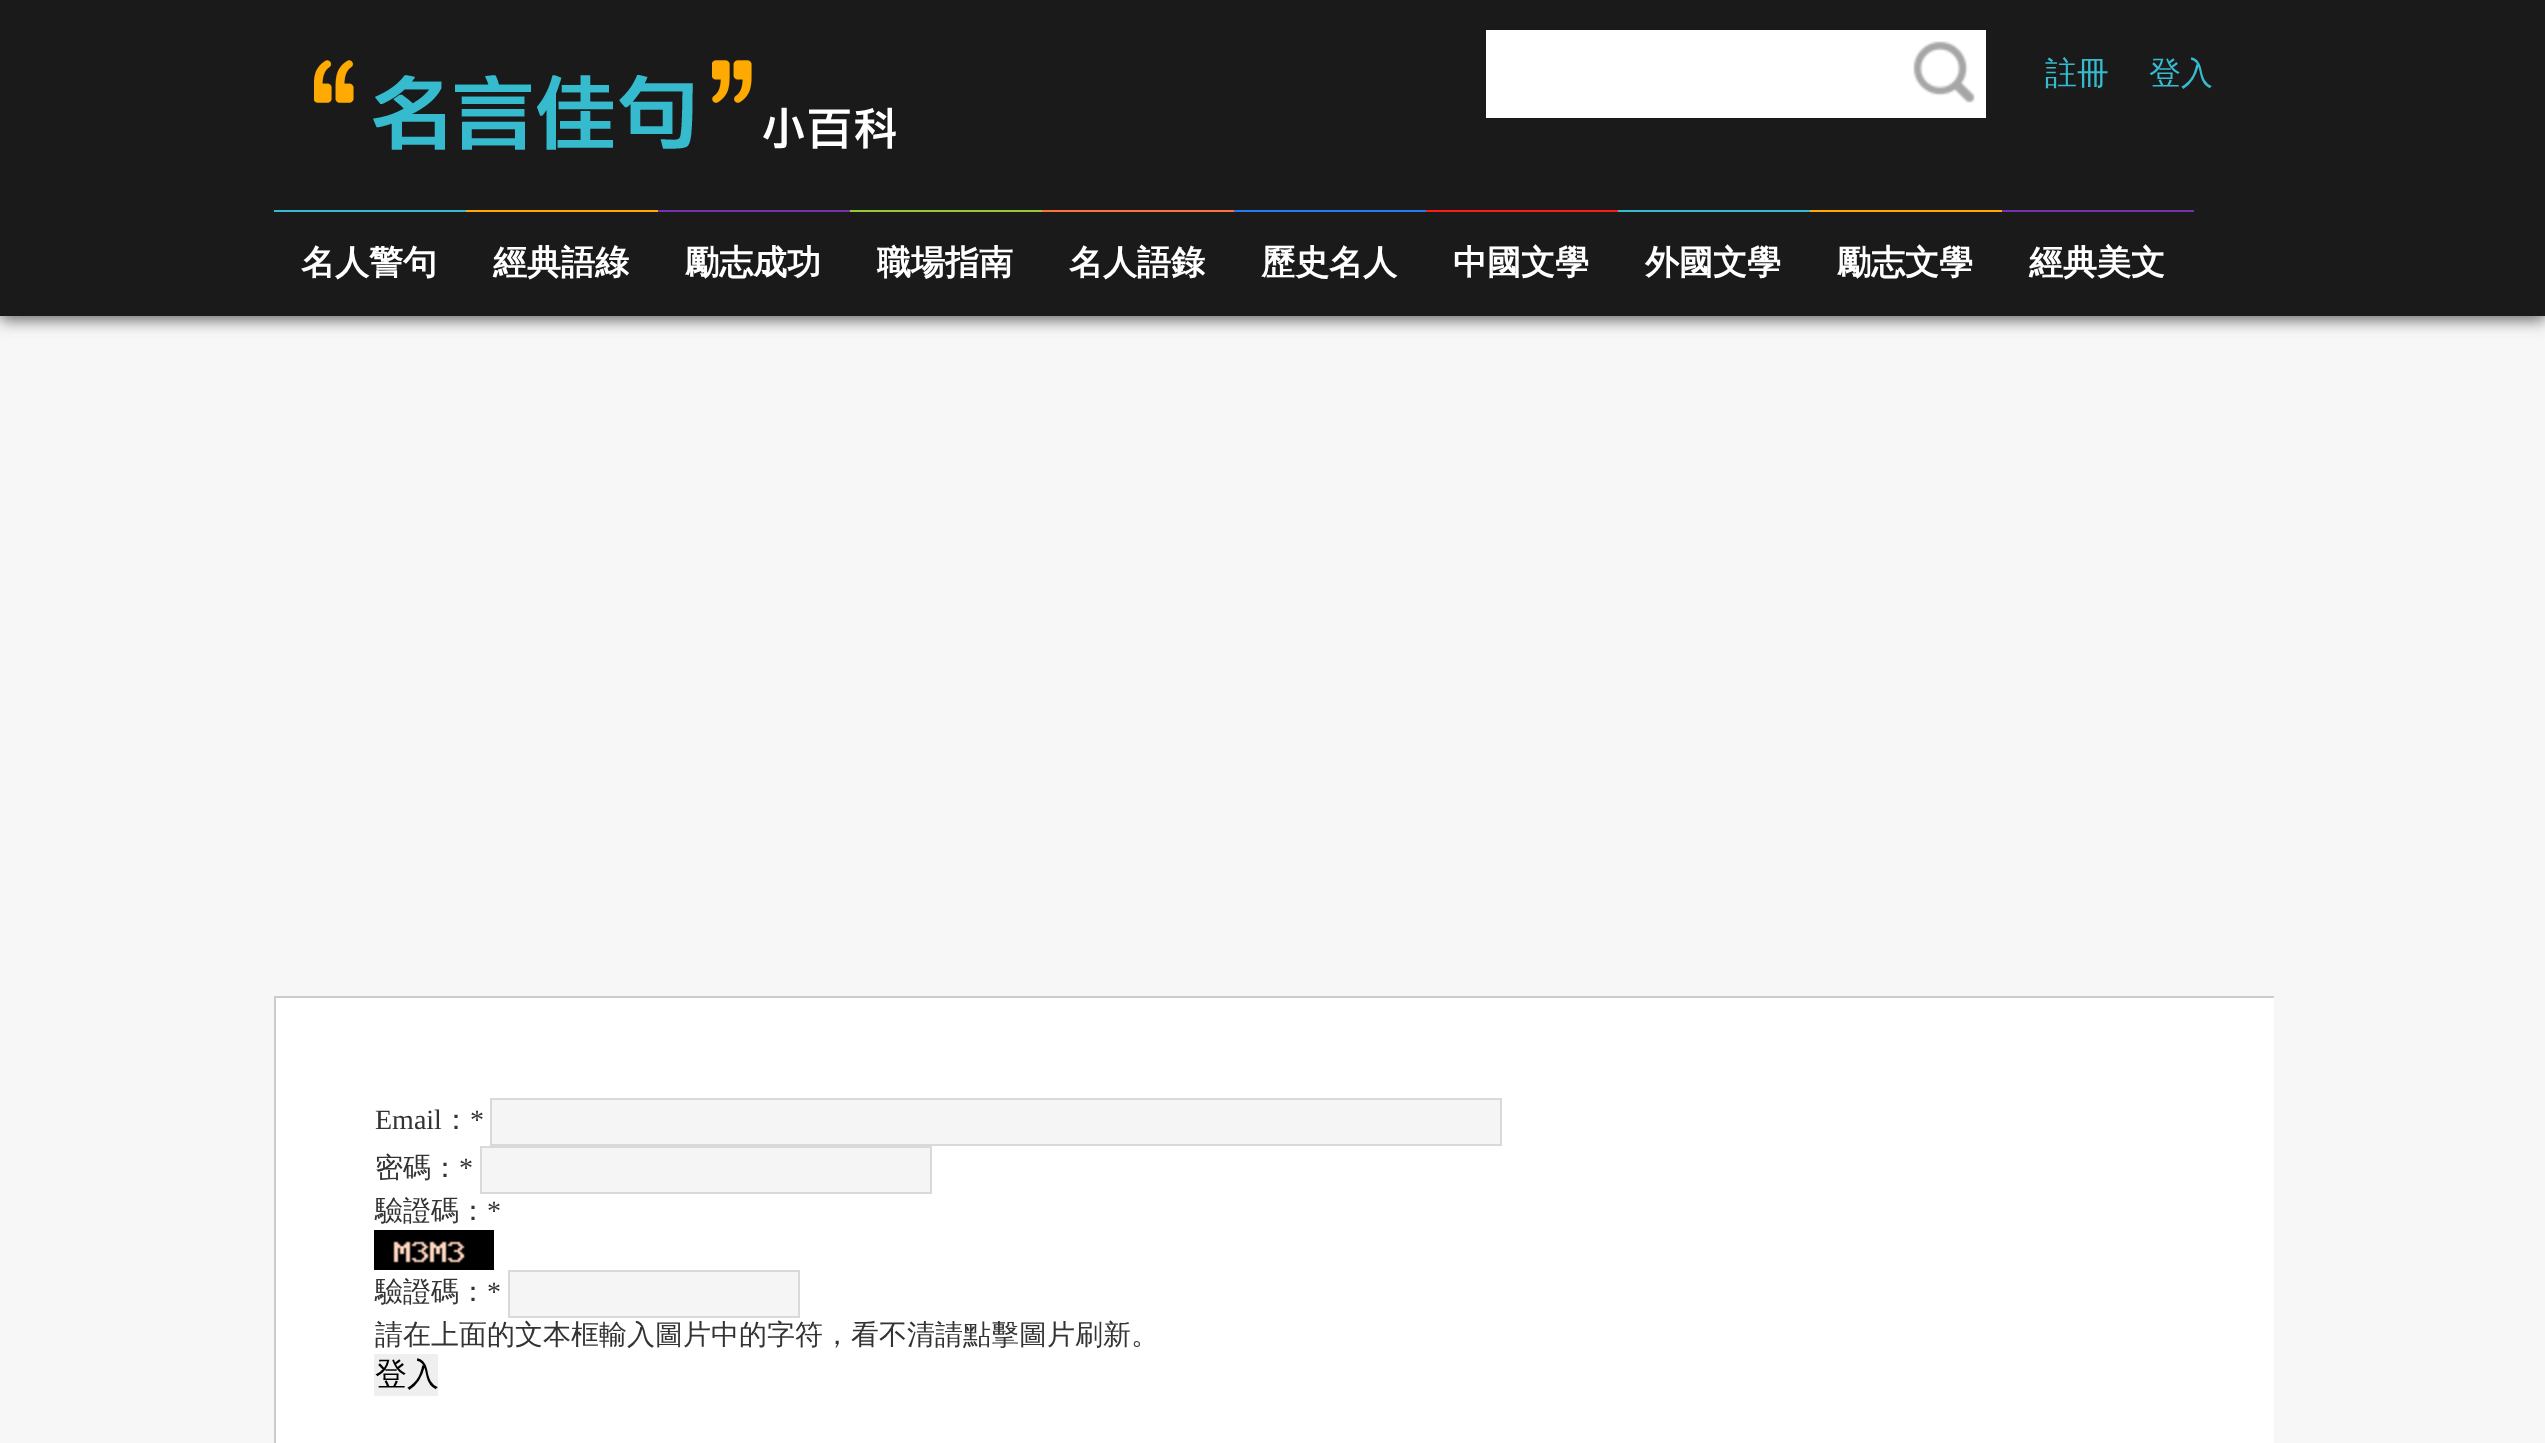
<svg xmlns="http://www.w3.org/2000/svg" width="2545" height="1443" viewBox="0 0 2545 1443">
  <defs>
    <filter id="blur1" x="-50%" y="-200%" width="200%" height="500%"><feGaussianBlur stdDeviation="8"/></filter>
  </defs>
  <rect width="100%" height="100%" fill="#f7f7f7"/>
  <rect x="0" y="4" width="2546" height="316" fill="#666666" filter="url(#blur1)"/>
  <rect x="0" y="0" width="2545" height="316" fill="#1a1a1a"/>
  <image x="314" y="60" width="582" height="90" href="img1.png"/>
  <rect x="1486" y="30" width="500" height="88" fill="#ffffff"/>
  <image x="1913" y="41" width="62" height="62" href="img2.png"/>
  <text x="2045" y="84" font-family="WenQuanYi Zen Hei" font-size="32" font-weight="500" fill="#36bbce">註冊</text>
  <text x="2149" y="84" font-family="WenQuanYi Zen Hei" font-size="32" font-weight="500" fill="#36bbce">登入</text>
  <rect x="274" y="210" width="192" height="2" fill="#36bbce"/>
  <text x="301" y="274" font-family="WenQuanYi Zen Hei" font-size="34" font-weight="bold" fill="#ffffff">名人警句</text>
  <rect x="466" y="210" width="192" height="2" fill="#ffaa00"/>
  <text x="493" y="274" font-family="WenQuanYi Zen Hei" font-size="34" font-weight="bold" fill="#ffffff">經典語綠</text>
  <rect x="658" y="210" width="192" height="2" fill="#7433ac"/>
  <text x="685" y="274" font-family="WenQuanYi Zen Hei" font-size="34" font-weight="bold" fill="#ffffff">勵志成功</text>
  <rect x="850" y="210" width="192" height="2" fill="#94cc33"/>
  <text x="877" y="274" font-family="WenQuanYi Zen Hei" font-size="34" font-weight="bold" fill="#ffffff">職場指南</text>
  <rect x="1042" y="210" width="192" height="2" fill="#ff703f"/>
  <text x="1069" y="274" font-family="WenQuanYi Zen Hei" font-size="34" font-weight="bold" fill="#ffffff">名人語錄</text>
  <rect x="1234" y="210" width="192" height="2" fill="#277bee"/>
  <text x="1261" y="274" font-family="WenQuanYi Zen Hei" font-size="34" font-weight="bold" fill="#ffffff">歷史名人</text>
  <rect x="1426" y="210" width="192" height="2" fill="#ff1b15"/>
  <text x="1453" y="274" font-family="WenQuanYi Zen Hei" font-size="34" font-weight="bold" fill="#ffffff">中國文學</text>
  <rect x="1618" y="210" width="192" height="2" fill="#36bbce"/>
  <text x="1645" y="274" font-family="WenQuanYi Zen Hei" font-size="34" font-weight="bold" fill="#ffffff">外國文學</text>
  <rect x="1810" y="210" width="192" height="2" fill="#ffaa00"/>
  <text x="1837" y="274" font-family="WenQuanYi Zen Hei" font-size="34" font-weight="bold" fill="#ffffff">勵志文學</text>
  <rect x="2002" y="210" width="192" height="2" fill="#7433ac"/>
  <text x="2029" y="274" font-family="WenQuanYi Zen Hei" font-size="34" font-weight="bold" fill="#ffffff">經典美文</text>
  <rect x="276" y="998" width="1998" height="445" fill="#ffffff"/>
  <rect x="274" y="996" width="2000" height="2" fill="#cccccc"/>
  <rect x="274" y="996" width="2" height="447" fill="#cccccc"/>
  <text x="375" y="1129" font-family="Liberation Serif" font-size="28" fill="#333333">Email</text>
  <text x="442" y="1129" font-family="WenQuanYi Zen Hei" font-size="28" font-weight="500" fill="#333333">：</text>
  <text x="470" y="1129" font-family="Liberation Serif" font-size="28" fill="#333333">*</text>
  <rect x="491" y="1099" width="1010" height="46" fill="#f5f5f5" stroke="#d9d9d9" stroke-width="2"/>
  <text x="375" y="1177" font-family="WenQuanYi Zen Hei" font-size="28" font-weight="500" fill="#333333">密碼：</text>
  <text x="459" y="1177" font-family="Liberation Serif" font-size="28" fill="#333333">*</text>
  <rect x="481" y="1147" width="450" height="46" fill="#f5f5f5" stroke="#d9d9d9" stroke-width="2"/>
  <text x="375" y="1220" font-family="WenQuanYi Zen Hei" font-size="28" font-weight="500" fill="#333333">驗證碼：</text>
  <text x="487" y="1220" font-family="Liberation Serif" font-size="28" fill="#333333">*</text>
  <image x="374" y="1230" width="120" height="40" href="img3.png"/>
  <text x="375" y="1301" font-family="WenQuanYi Zen Hei" font-size="28" font-weight="500" fill="#333333">驗證碼：</text>
  <text x="487" y="1301" font-family="Liberation Serif" font-size="28" fill="#333333">*</text>
  <rect x="509" y="1271" width="290" height="46" fill="#f5f5f5" stroke="#d9d9d9" stroke-width="2"/>
  <text x="375" y="1344" font-family="WenQuanYi Zen Hei" font-size="28" font-weight="500" fill="#333333">請在上面的文本框輸入圖片中的字符，看不清請點擊圖片刷新。</text>
  <rect x="374" y="1354" width="64" height="42" fill="#efefef"/>
  <text x="375" y="1385" font-family="WenQuanYi Zen Hei" font-size="32" font-weight="500" fill="#000000">登入</text>
</svg>
